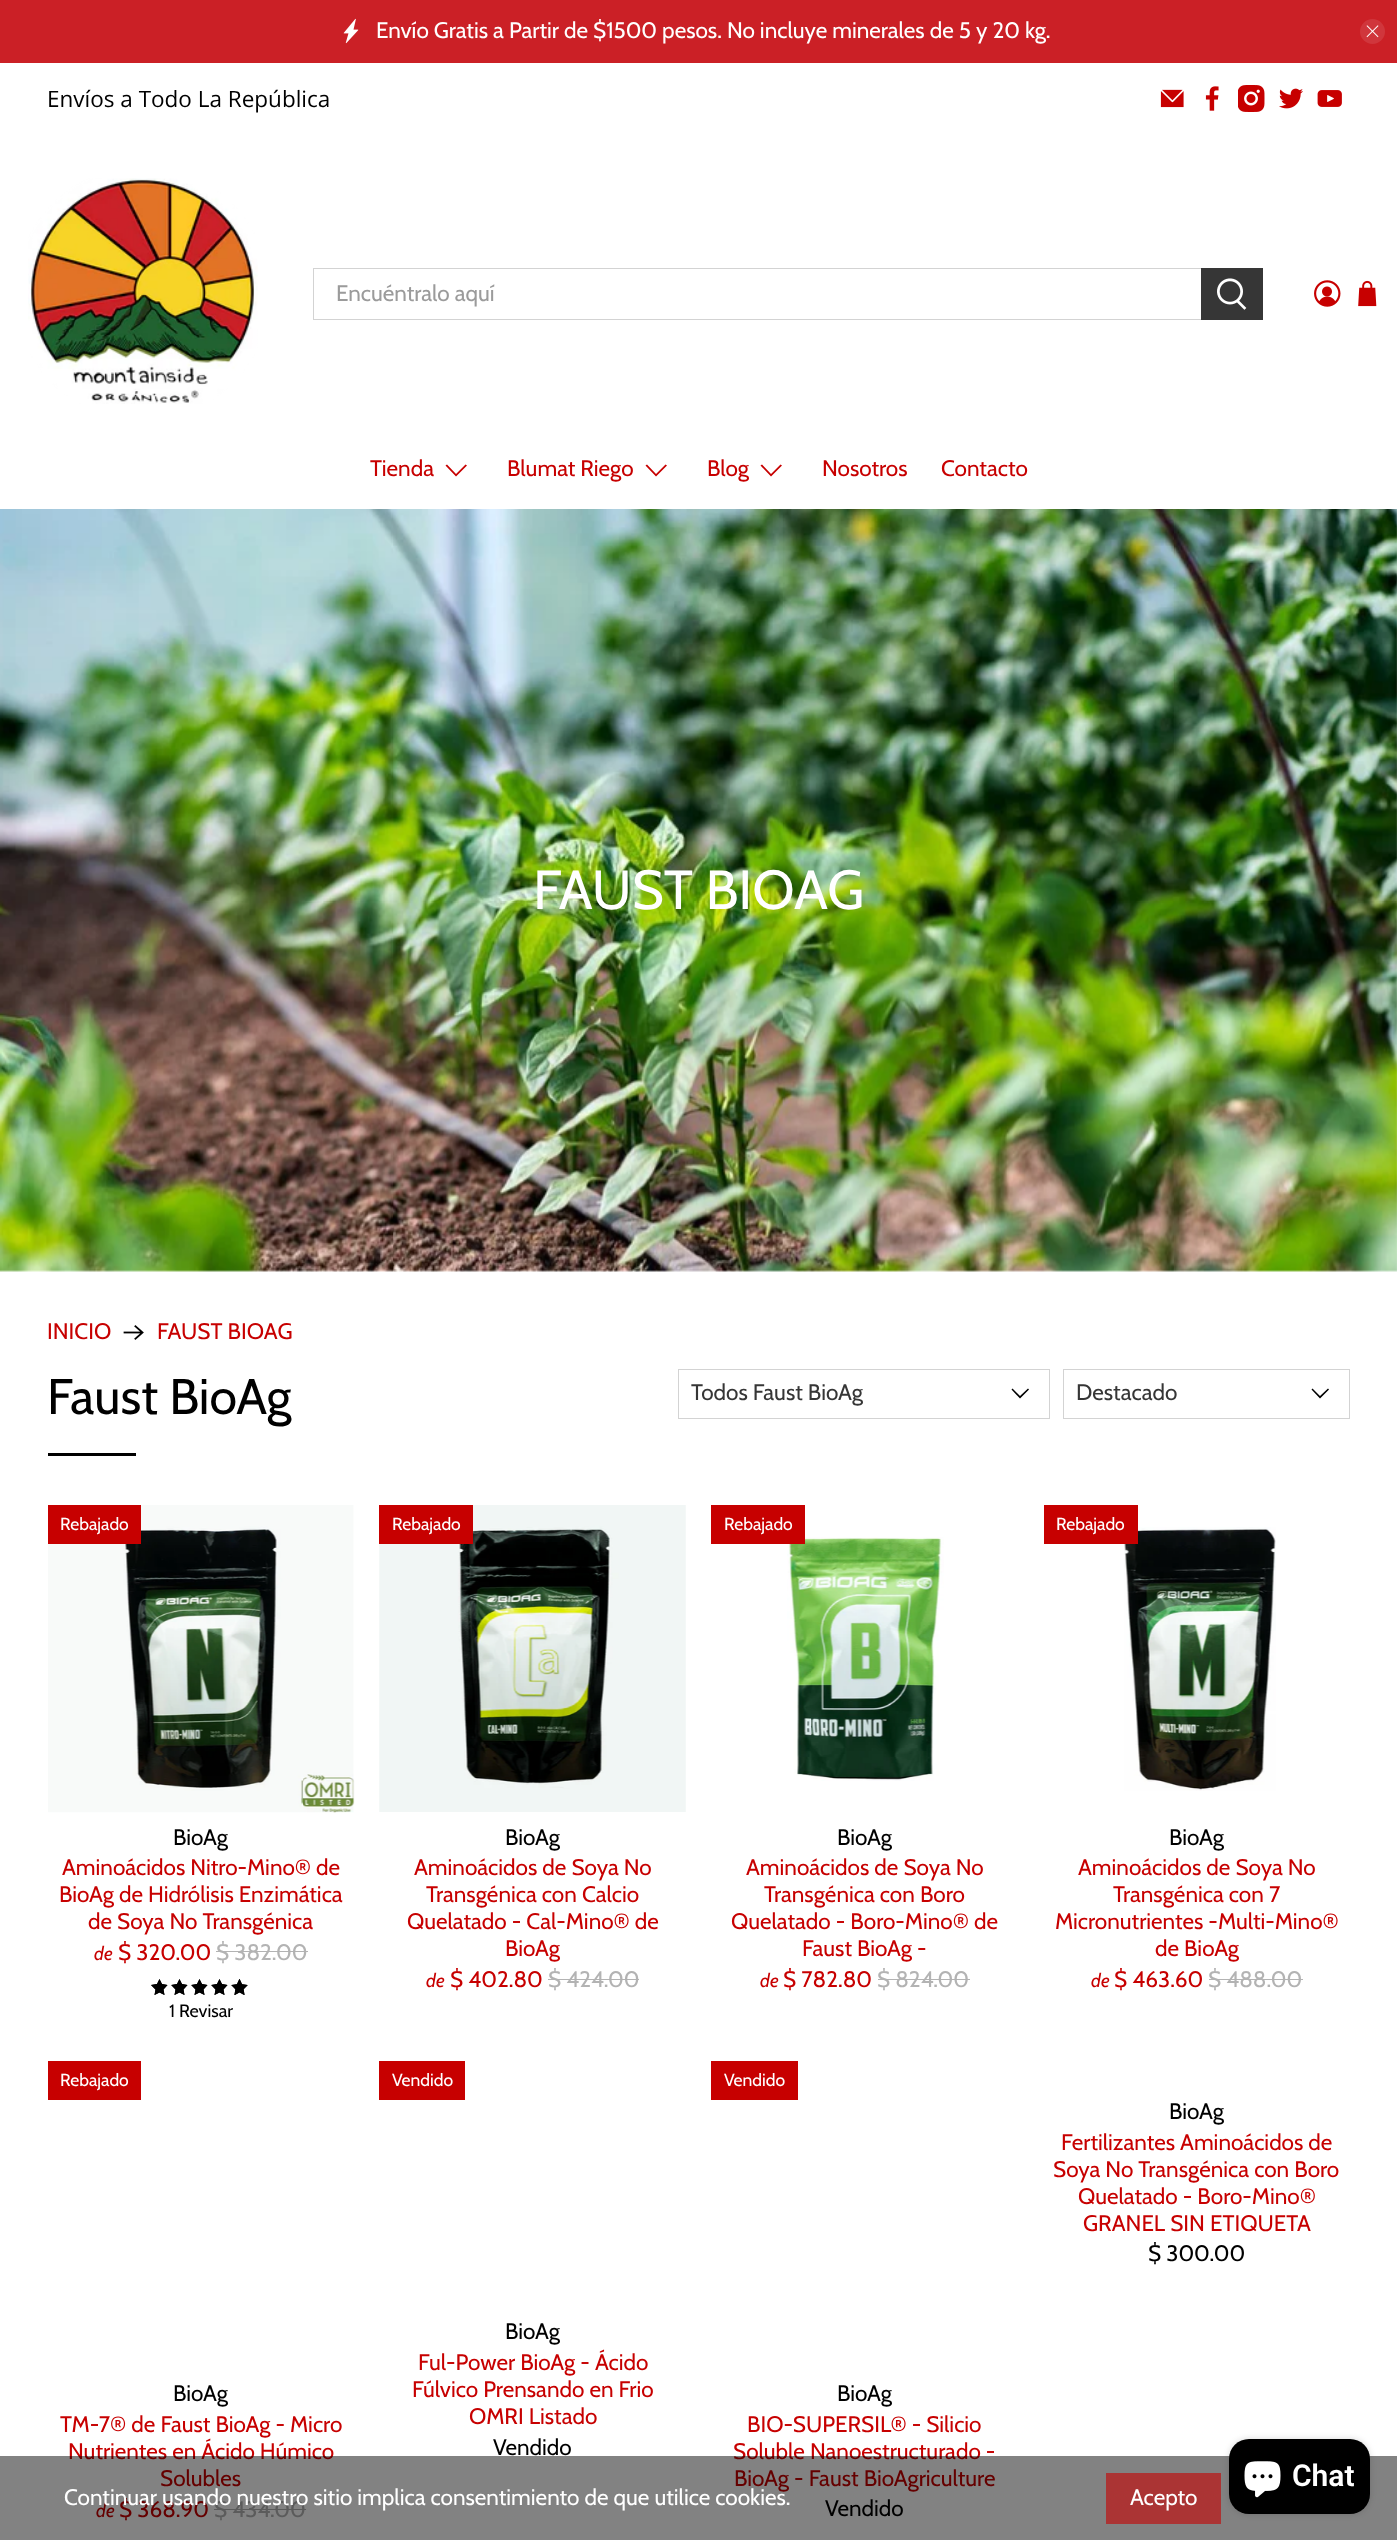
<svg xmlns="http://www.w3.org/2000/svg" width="1397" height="2540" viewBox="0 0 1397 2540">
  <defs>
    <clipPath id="clip1"><path d="M159.5 1979L162 1984L167.5 1985L163.5 1989.5L164.5 1995L159.5 1992.5L154.5 1995L155.5 1989.5L151 1985L157 1984Z"/></clipPath>
    <clipPath id="clip2"><path d="M179.5 1979L182 1984L187.5 1985L183.5 1989.5L184.5 1995L179.5 1992.5L174.5 1995L175.5 1989.5L171.5 1985L177 1984Z"/></clipPath>
    <clipPath id="clip3"><path d="M199.5 1979L202 1984L207.5 1985L203.5 1989.5L204.5 1995L199.5 1992.5L194.5 1995L195.5 1989.5L191.5 1985L197 1984Z"/></clipPath>
    <clipPath id="clip4"><path d="M219.5 1979L222 1984L227.5 1985L223.5 1989.5L224.5 1995L219.5 1992.5L214.5 1995L215.5 1989.5L211.5 1985L217 1984Z"/></clipPath>
    <filter id="blur1" x="-50%" y="-200%" width="200%" height="500%"><feGaussianBlur stdDeviation="3"/></filter>
  </defs>
  <rect width="100%" height="100%" fill="#ffffff"/>
  <rect x="0" y="0" width="1397" height="63" fill="#cb2026"/>
  <image x="343" y="18" width="16" height="26" href="img1.png"/>
  <text x="376" y="38" font-family="Cabin" font-size="22.5" fill="#ffffff">Envío Gratis a Partir de $1500 pesos. No incluye minerales de 5 y 20 kg.</text>
  <circle cx="1372.5" cy="31.5" r="12.5" fill="#d0363c"/>
  <image x="1366" y="25" width="13" height="13" href="img2.png"/>
  <text x="47" y="107" font-family="Open Sans" font-size="22.5" fill="#000000">Envíos a Todo La República</text>
  <image x="1160" y="89" width="24" height="19" href="img3.png"/>
  <image x="1205" y="86" width="14" height="25" href="img4.png"/>
  <image x="1238" y="85" width="27" height="27" href="img5.png"/>
  <image x="1279" y="88" width="24" height="21" href="img6.png"/>
  <image x="1317" y="90" width="25" height="17" href="img7.png"/>
  <image x="28" y="178" width="230" height="226" href="img8.png"/>
  <rect x="313.5" y="268.5" width="889" height="51" fill="none" stroke="#d3d3d3"/>
  <text x="336" y="301" font-family="Cabin" font-size="22.5" fill="#9b9b9b">Encuéntralo aquí</text>
  <rect x="1201" y="268" width="62" height="52" fill="#363636"/>
  <image x="1217" y="278" width="30" height="32" href="img9.png"/>
  <image x="1314" y="280" width="27" height="27" href="img10.png"/>
  <image x="1358" y="280" width="19" height="27" href="img11.png"/>
  <text x="370" y="476" font-family="Cabin" font-size="22.5" fill="#c70000">Tienda</text>
  <path d="M456 476.5L445.5 465.5L447 464.5L456 474L465.5 464.5L467 465.5Z" fill="#c70000"/>
  <text x="507" y="476" font-family="Cabin" font-size="22.5" fill="#c70000">Blumat Riego</text>
  <path d="M656 476.5L645.5 465.5L647 464.5L656 474L665.5 464.5L667 465.5Z" fill="#c70000"/>
  <text x="707" y="476" font-family="Cabin" font-size="22.5" fill="#c70000">Blog</text>
  <path d="M771 476.5L760.5 465.5L762 464.5L771 474L780.5 464.5L782 465.5Z" fill="#c70000"/>
  <text x="822" y="476" font-family="Cabin" font-size="22.5" fill="#c70000">Nosotros</text>
  <text x="941" y="476" font-family="Cabin" font-size="22.5" fill="#c70000">Contacto</text>
  <image x="0" y="509" width="1397" height="763" href="img12.png"/>
  <text x="533" y="909" font-family="Cabin" font-size="55" fill="#ffffff">FAUST BIOAG</text>
  <text x="47" y="1339" font-family="Cabin" font-size="22.5" fill="#c70000">INICIO</text>
  <image x="123" y="1325" width="21" height="15" href="img13.png"/>
  <text x="157" y="1339" font-family="Cabin" font-size="22.5" fill="#c70000">FAUST BIOAG</text>
  <text x="47" y="1414" font-family="Cabin" font-size="50" fill="#000000">Faust BioAg</text>
  <rect x="48" y="1453" width="88" height="3" fill="#000000"/>
  <rect x="678.5" y="1369.5" width="371" height="49" fill="none" stroke="#d3d3d3"/>
  <text x="691" y="1400" font-family="Cabin" font-size="22.5" fill="#363636">Todos Faust BioAg</text>
  <path d="M1020 1398.5L1011.5 1389.5L1012.5 1388.5L1020 1396L1028 1388.5L1029 1389.5Z" fill="#000000"/>
  <rect x="1063.5" y="1369.5" width="286" height="49" fill="none" stroke="#d3d3d3"/>
  <text x="1076" y="1400" font-family="Cabin" font-size="22.5" fill="#363636">Destacado</text>
  <path d="M1320 1398.5L1311.5 1389.5L1312.5 1388.5L1320 1396L1328 1388.5L1329 1389.5Z" fill="#000000"/>
  <image x="48" y="1505" width="307" height="308" href="img14.png"/>
  <rect x="48" y="1505" width="93" height="39" fill="#c70000"/>
  <text x="60" y="1530" font-family="Cabin" font-size="17.5" fill="#ffffff">Rebajado</text>
  <text x="173" y="1845" font-family="Cabin" font-size="22.5" fill="#000000">BioAg</text>
  <text x="62" y="1875" font-family="Cabin" font-size="22.5" fill="#c70000">Aminoácidos Nitro-Mino® de</text>
  <text x="59" y="1902" font-family="Cabin" font-size="22.5" fill="#c70000">BioAg de Hidrólisis Enzimática</text>
  <text x="88" y="1929" font-family="Cabin" font-size="22.5" fill="#c70000">de Soya No Transgénica</text>
  <text x="94" y="1960" font-family="Cabin" font-size="19" font-style="italic" fill="#c70000">de</text>
  <text x="118" y="1960" font-family="Cabin" font-size="22.5" fill="#c70000">$ 320.00</text>
  <text x="216" y="1960" font-family="Cabin" font-size="22.5" fill="#b3b3b3">$ 382.00</text>
  <rect x="216" y="1951" width="92" height="1" fill="#b3b3b3"/>
  <path d="M159.5 1979L157 1984L151 1985L155.5 1989.5L154.5 1995L159.5 1992.5L164.5 1995L163.5 1989.5L167.5 1985L162 1984Z" fill="#000000"/>
  <g clip-path="url(#clip1)">
    <path d="M159.5 1979L162 1984L167.5 1985L163.5 1989.5L164.5 1995L159.5 1992.5L154.5 1995L155.5 1989.5L151 1985L157 1984Z" fill="none" stroke="#000000" stroke-width="2.4" stroke-linecap="round" stroke-linejoin="round"/>
  </g>
  <path d="M179.5 1979L177 1984L171 1985L175.5 1989.5L174.5 1995L179.5 1992.5L184.5 1995L183.5 1989.5L187.5 1985L182 1984Z" fill="#000000"/>
  <g clip-path="url(#clip2)">
    <path d="M179.5 1979L182 1984L187.5 1985L183.5 1989.5L184.5 1995L179.5 1992.5L174.5 1995L175.5 1989.5L171.5 1985L177 1984Z" fill="none" stroke="#000000" stroke-width="2.4" stroke-linecap="round" stroke-linejoin="round"/>
  </g>
  <path d="M199.5 1979L197 1984L191 1985L195.5 1989.5L194.5 1995L199.5 1992.5L204.5 1995L203.5 1989.5L207.5 1985L202 1984Z" fill="#000000"/>
  <g clip-path="url(#clip3)">
    <path d="M199.5 1979L202 1984L207.5 1985L203.5 1989.5L204.5 1995L199.5 1992.5L194.5 1995L195.5 1989.5L191.5 1985L197 1984Z" fill="none" stroke="#000000" stroke-width="2.4" stroke-linecap="round" stroke-linejoin="round"/>
  </g>
  <path d="M219.5 1979L217 1984L211 1985L215.5 1989.5L214.5 1995L219.5 1992.5L224.5 1995L223.5 1989.5L227.5 1985L222 1984Z" fill="#000000"/>
  <g clip-path="url(#clip4)">
    <path d="M219.5 1979L222 1984L227.5 1985L223.5 1989.5L224.5 1995L219.5 1992.5L214.5 1995L215.5 1989.5L211.5 1985L217 1984Z" fill="none" stroke="#000000" stroke-width="2.4" stroke-linecap="round" stroke-linejoin="round"/>
  </g>
  <image x="231" y="1979" width="17" height="16" href="img15.png"/>
  <text x="169" y="2017" font-family="Cabin" font-size="18" fill="#000000">1 Revisar</text>
  <image x="379" y="1505" width="307" height="307" href="img16.png"/>
  <rect x="379" y="1505" width="94" height="39" fill="#c70000"/>
  <text x="392" y="1530" font-family="Cabin" font-size="17.5" fill="#ffffff">Rebajado</text>
  <text x="505" y="1845" font-family="Cabin" font-size="22.5" fill="#000000">BioAg</text>
  <text x="414" y="1875" font-family="Cabin" font-size="22.5" fill="#c70000">Aminoácidos de Soya No</text>
  <text x="426" y="1902" font-family="Cabin" font-size="22.5" fill="#c70000">Transgénica con Calcio</text>
  <text x="407" y="1929" font-family="Cabin" font-size="22.5" fill="#c70000">Quelatado - Cal-Mino® de</text>
  <text x="505" y="1956" font-family="Cabin" font-size="22.5" fill="#c70000">BioAg</text>
  <text x="426" y="1987" font-family="Cabin" font-size="19" font-style="italic" fill="#c70000">de</text>
  <text x="450" y="1987" font-family="Cabin" font-size="22.5" fill="#c70000">$ 402.80</text>
  <text x="548" y="1987" font-family="Cabin" font-size="22.5" fill="#b3b3b3">$ 424.00</text>
  <rect x="548" y="1979" width="91" height="1" fill="#b3b3b3"/>
  <image x="787" y="1537" width="157" height="244" href="img17.png"/>
  <rect x="711" y="1505" width="94" height="39" fill="#c70000"/>
  <text x="724" y="1530" font-family="Cabin" font-size="17.5" fill="#ffffff">Rebajado</text>
  <text x="837" y="1845" font-family="Cabin" font-size="22.5" fill="#000000">BioAg</text>
  <text x="746" y="1875" font-family="Cabin" font-size="22.5" fill="#c70000">Aminoácidos de Soya No</text>
  <text x="764" y="1902" font-family="Cabin" font-size="22.5" fill="#c70000">Transgénica con Boro</text>
  <text x="731" y="1929" font-family="Cabin" font-size="22.5" fill="#c70000">Quelatado - Boro-Mino® de</text>
  <text x="802" y="1956" font-family="Cabin" font-size="22.5" fill="#c70000">Faust BioAg -</text>
  <text x="760" y="1987" font-family="Cabin" font-size="19" font-style="italic" fill="#c70000">de</text>
  <text x="783" y="1987" font-family="Cabin" font-size="22.5" fill="#c70000">$ 782.80</text>
  <text x="877" y="1987" font-family="Cabin" font-size="22.5" fill="#b3b3b3">$ 824.00</text>
  <rect x="878" y="1979" width="92" height="1" fill="#b3b3b3"/>
  <image x="1124" y="1527" width="152" height="264" href="img18.png"/>
  <rect x="1044" y="1505" width="94" height="39" fill="#c70000"/>
  <text x="1056" y="1530" font-family="Cabin" font-size="17.5" fill="#ffffff">Rebajado</text>
  <text x="1169" y="1845" font-family="Cabin" font-size="22.5" fill="#000000">BioAg</text>
  <text x="1078" y="1875" font-family="Cabin" font-size="22.5" fill="#c70000">Aminoácidos de Soya No</text>
  <text x="1113" y="1902" font-family="Cabin" font-size="22.5" fill="#c70000">Transgénica con 7</text>
  <text x="1055" y="1929" font-family="Cabin" font-size="22.5" fill="#c70000">Micronutrientes -Multi-Mino®</text>
  <text x="1155" y="1956" font-family="Cabin" font-size="22.5" fill="#c70000">de BioAg</text>
  <text x="1091" y="1987" font-family="Cabin" font-size="19" font-style="italic" fill="#c70000">de</text>
  <text x="1114" y="1987" font-family="Cabin" font-size="22.5" fill="#c70000">$ 463.60</text>
  <text x="1208" y="1987" font-family="Cabin" font-size="22.5" fill="#b3b3b3">$ 488.00</text>
  <rect x="1209" y="1979" width="94" height="1" fill="#b3b3b3"/>
  <rect x="48" y="2061" width="93" height="39" fill="#c70000"/>
  <text x="60" y="2086" font-family="Cabin" font-size="17.5" fill="#ffffff">Rebajado</text>
  <text x="173" y="2401" font-family="Cabin" font-size="22.5" fill="#000000">BioAg</text>
  <text x="60" y="2432" font-family="Cabin" font-size="22.5" fill="#c70000">TM-7® de Faust BioAg - Micro</text>
  <text x="68" y="2459" font-family="Cabin" font-size="22.5" fill="#c70000">Nutrientes en Ácido Húmico</text>
  <text x="160" y="2486" font-family="Cabin" font-size="22.5" fill="#c70000">Solubles</text>
  <text x="96" y="2517" font-family="Cabin" font-size="19" font-style="italic" fill="#c70000">de</text>
  <text x="119" y="2517" font-family="Cabin" font-size="22.5" fill="#c70000">$ 368.90</text>
  <text x="214" y="2517" font-family="Cabin" font-size="22.5" fill="#b3b3b3">$ 434.00</text>
  <rect x="214" y="2509" width="92" height="1" fill="#b3b3b3"/>
  <rect x="379" y="2061" width="86" height="39" fill="#c70000"/>
  <text x="392" y="2086" font-family="Cabin" font-size="17.5" fill="#ffffff">Vendido</text>
  <text x="505" y="2339" font-family="Cabin" font-size="22.5" fill="#000000">BioAg</text>
  <text x="418" y="2370" font-family="Cabin" font-size="22.5" fill="#c70000">Ful-Power BioAg - Ácido</text>
  <text x="412" y="2397" font-family="Cabin" font-size="22.5" fill="#c70000">Fúlvico Prensando en Frio</text>
  <text x="469" y="2424" font-family="Cabin" font-size="22.5" fill="#c70000">OMRI Listado</text>
  <text x="493" y="2455" font-family="Cabin" font-size="22.5" fill="#000000">Vendido</text>
  <rect x="711" y="2061" width="87" height="39" fill="#c70000"/>
  <text x="724" y="2086" font-family="Cabin" font-size="17.5" fill="#ffffff">Vendido</text>
  <text x="837" y="2401" font-family="Cabin" font-size="22.5" fill="#000000">BioAg</text>
  <text x="747" y="2432" font-family="Cabin" font-size="22.5" fill="#c70000">BIO-SUPERSIL® - Silicio</text>
  <text x="733" y="2459" font-family="Cabin" font-size="22.5" fill="#c70000">Soluble Nanoestructurado -</text>
  <text x="734" y="2486" font-family="Cabin" font-size="22.5" fill="#c70000">BioAg - Faust BioAgriculture</text>
  <text x="825" y="2516" font-family="Cabin" font-size="22.5" fill="#000000">Vendido</text>
  <text x="1169" y="2119" font-family="Cabin" font-size="22.5" fill="#000000">BioAg</text>
  <text x="1061" y="2150" font-family="Cabin" font-size="22.5" fill="#c70000">Fertilizantes Aminoácidos de</text>
  <text x="1053" y="2177" font-family="Cabin" font-size="22.5" fill="#c70000">Soya No Transgénica con Boro</text>
  <text x="1078" y="2204" font-family="Cabin" font-size="22.5" fill="#c70000">Quelatado - Boro-Mino®</text>
  <text x="1083" y="2231" font-family="Cabin" font-size="22.5" fill="#c70000">GRANEL SIN ETIQUETA</text>
  <text x="1148" y="2261" font-family="Cabin" font-size="22.5" fill="#000000">$ 300.00</text>
  <rect x="0" y="2456" width="1397" height="84" fill="#000000" fill-opacity="0.49"/>
  <rect x="1106" y="2473" width="115" height="51" fill="#ab3434"/>
  <rect x="1229" y="2439" width="141" height="75" rx="20" fill="#000000" fill-opacity="0.15" filter="url(#blur1)"/>
  <rect x="1229" y="2439" width="141" height="75" rx="20" fill="#000000"/>
  <image x="1244" y="2461" width="37" height="37" href="img19.png"/>
  <text x="1292" y="2486" font-family="Roboto" font-size="30" font-weight="600" fill="#ffffff">Chat</text>
  <text x="64" y="2505" font-family="Cabin" font-size="22.5" fill="#ffffff">Continuar usando nuestro sitio implica consentimiento de que utilice cookies.</text>
  <text x="1130" y="2505" font-family="Cabin" font-size="22.5" fill="#ffffff">Acepto</text>
</svg>
